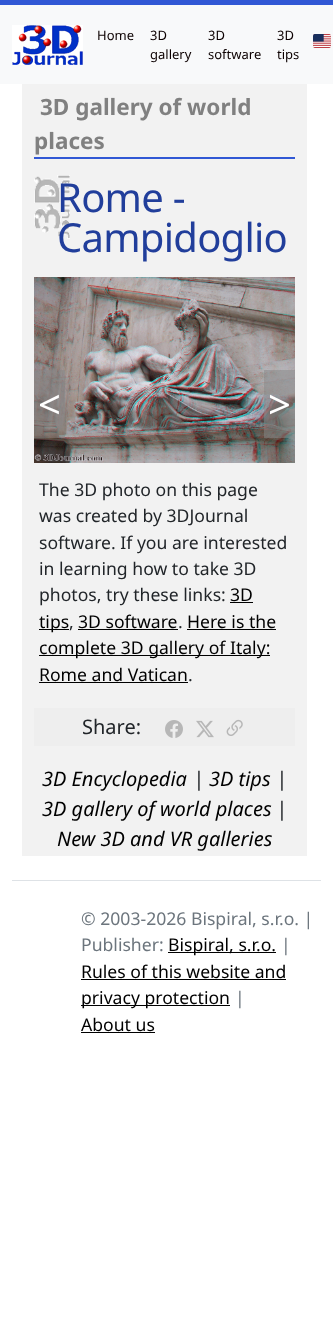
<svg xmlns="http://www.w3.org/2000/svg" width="333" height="1339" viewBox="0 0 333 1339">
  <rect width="100%" height="100%" fill="#ffffff"/>
  <rect x="0" y="5" width="333" height="79" fill="#f8f9fa"/>
  <rect x="0" y="0" width="333" height="5" fill="#3158d5"/>
  <image x="12" y="25" width="71" height="40" href="img1.png"/>
  <text x="97" y="40" font-family="Noto Sans" font-size="13" fill="#0c0000">Home</text>
  <text x="150" y="40" font-family="Noto Sans" font-size="13" fill="#0c0000">3D</text>
  <text x="150" y="59" font-family="Noto Sans" font-size="13" fill="#0c0000">gallery</text>
  <text x="208" y="40" font-family="Noto Sans" font-size="13" fill="#0c0000">3D</text>
  <text x="208" y="59" font-family="Noto Sans" font-size="13" fill="#0c0000">software</text>
  <text x="277" y="40" font-family="Noto Sans" font-size="13" fill="#0c0000">3D</text>
  <text x="277" y="59" font-family="Noto Sans" font-size="13" fill="#0c0000">tips</text>
  <image x="313" y="34" width="18" height="14" href="img2.png"/>
  <rect x="22" y="84" width="285" height="772" fill="#f2f2f2"/>
  <rect x="34" y="157" width="261" height="2" fill="#3158d5"/>
  <text x="40" y="115" font-family="Noto Sans" font-size="22.5" font-weight="bold" fill="#808080">3D gallery of world</text>
  <text x="34" y="149" font-family="Noto Sans" font-size="22.5" font-weight="bold" fill="#808080">places</text>
  <image x="34" y="175" width="36" height="64" href="img3.png"/>
  <text x="57" y="212" font-family="Noto Sans" font-size="40" letter-spacing="-0.75" fill="#213e9b">Rome -</text>
  <text x="57" y="252" font-family="Noto Sans" font-size="40" letter-spacing="-0.75" fill="#213e9b">Campidoglio</text>
  <image x="34" y="277" width="261" height="186" href="img4.png"/>
  <rect x="34" y="370" width="31" height="68" fill="#888888" fill-opacity="0.53"/>
  <text x="38" y="419" font-family="Noto Sans" font-size="40" fill="#ffffff">&lt;</text>
  <rect x="264" y="370" width="31" height="68" fill="#888888" fill-opacity="0.53"/>
  <text x="268" y="419" font-family="Noto Sans" font-size="40" fill="#ffffff">&gt;</text>
  <text x="39" y="496" font-family="Noto Sans" font-size="17.6" fill="#212529">The 3D photo on this page</text>
  <text x="39" y="522" font-family="Noto Sans" font-size="17.6" fill="#212529">was created by 3DJournal</text>
  <text x="39" y="549" font-family="Noto Sans" font-size="17.6" fill="#212529">software. If you are interested</text>
  <text x="39" y="575" font-family="Noto Sans" font-size="17.6" fill="#212529">in learning how to take 3D</text>
  <text x="39" y="601" font-family="Noto Sans" font-size="17.6" fill="#212529">photos, try these links:</text>
  <text x="230" y="601" font-family="Noto Sans" font-size="17.6" fill="#000000">3D</text>
  <rect x="230" y="602" width="23" height="1" fill="#000000"/>
  <rect x="39" y="629" width="30" height="1" fill="#000000"/>
  <text x="39" y="628" font-family="Noto Sans" font-size="17.6" fill="#000000">tips</text>
  <text x="69" y="628" font-family="Noto Sans" font-size="17.6" fill="#212529">,</text>
  <text x="78" y="628" font-family="Noto Sans" font-size="17.6" fill="#000000">3D software</text>
  <rect x="78" y="629" width="100" height="1" fill="#000000"/>
  <text x="178" y="628" font-family="Noto Sans" font-size="17.6" fill="#212529">.</text>
  <text x="187" y="628" font-family="Noto Sans" font-size="17.6" fill="#000000">Here is the</text>
  <rect x="187" y="629" width="89" height="1" fill="#000000"/>
  <rect x="39" y="655" width="231" height="1" fill="#000000"/>
  <text x="39" y="654" font-family="Noto Sans" font-size="17.6" fill="#000000">complete 3D gallery of Italy:</text>
  <text x="39" y="681" font-family="Noto Sans" font-size="17.6" fill="#000000">Rome and Vatican</text>
  <rect x="39" y="682" width="149" height="1" fill="#000000"/>
  <text x="188" y="681" font-family="Noto Sans" font-size="17.6" fill="#212529">.</text>
  <rect x="34" y="708" width="261" height="38" fill="#eeeeee"/>
  <text x="82" y="734" font-family="Noto Sans" font-size="20" fill="#212529">Share:</text>
  <image x="165" y="720" width="18" height="18" href="img5.png"/>
  <image x="196" y="720" width="18" height="18" href="img6.png"/>
  <image x="226" y="719" width="17" height="17" href="img7.png"/>
  <text x="42" y="786" font-family="Noto Sans" font-size="20" font-style="italic" fill="#000000">3D Encyclopedia</text>
  <text x="193" y="786" font-family="Noto Sans" font-size="20" font-style="italic" fill="#212529">|</text>
  <text x="209" y="786" font-family="Noto Sans" font-size="20" font-style="italic" fill="#000000">3D tips</text>
  <text x="276" y="786" font-family="Noto Sans" font-size="20" font-style="italic" fill="#212529">|</text>
  <text x="42" y="816" font-family="Noto Sans" font-size="20" font-style="italic" fill="#000000">3D gallery of world places</text>
  <text x="276" y="816" font-family="Noto Sans" font-size="20" font-style="italic" fill="#212529">|</text>
  <text x="57" y="846" font-family="Noto Sans" font-size="20" font-style="italic" fill="#000000">New 3D and VR galleries</text>
  <rect x="12" y="880" width="309" height="1" fill="#dee2e6"/>
  <text x="81" y="925" font-family="Noto Sans" font-size="17.6" fill="#6c757d">© 2003-2026 Bispiral, s.r.o. |</text>
  <text x="81" y="951" font-family="Noto Sans" font-size="17.6" fill="#6c757d">Publisher:</text>
  <rect x="168" y="952" width="108" height="1" fill="#000000"/>
  <text x="168" y="951" font-family="Noto Sans" font-size="17.6" fill="#000000">Bispiral, s.r.o.</text>
  <text x="281" y="951" font-family="Noto Sans" font-size="17.6" fill="#6c757d">|</text>
  <text x="81" y="978" font-family="Noto Sans" font-size="17.6" fill="#000000">Rules of this website and</text>
  <rect x="81" y="979" width="205" height="1" fill="#000000"/>
  <rect x="81" y="1005" width="149" height="1" fill="#000000"/>
  <text x="81" y="1004" font-family="Noto Sans" font-size="17.6" fill="#000000">privacy protection</text>
  <text x="235" y="1004" font-family="Noto Sans" font-size="17.6" fill="#6c757d">|</text>
  <text x="81" y="1031" font-family="Noto Sans" font-size="17.6" fill="#000000">About us</text>
  <rect x="81" y="1032" width="74" height="1" fill="#000000"/>
</svg>
